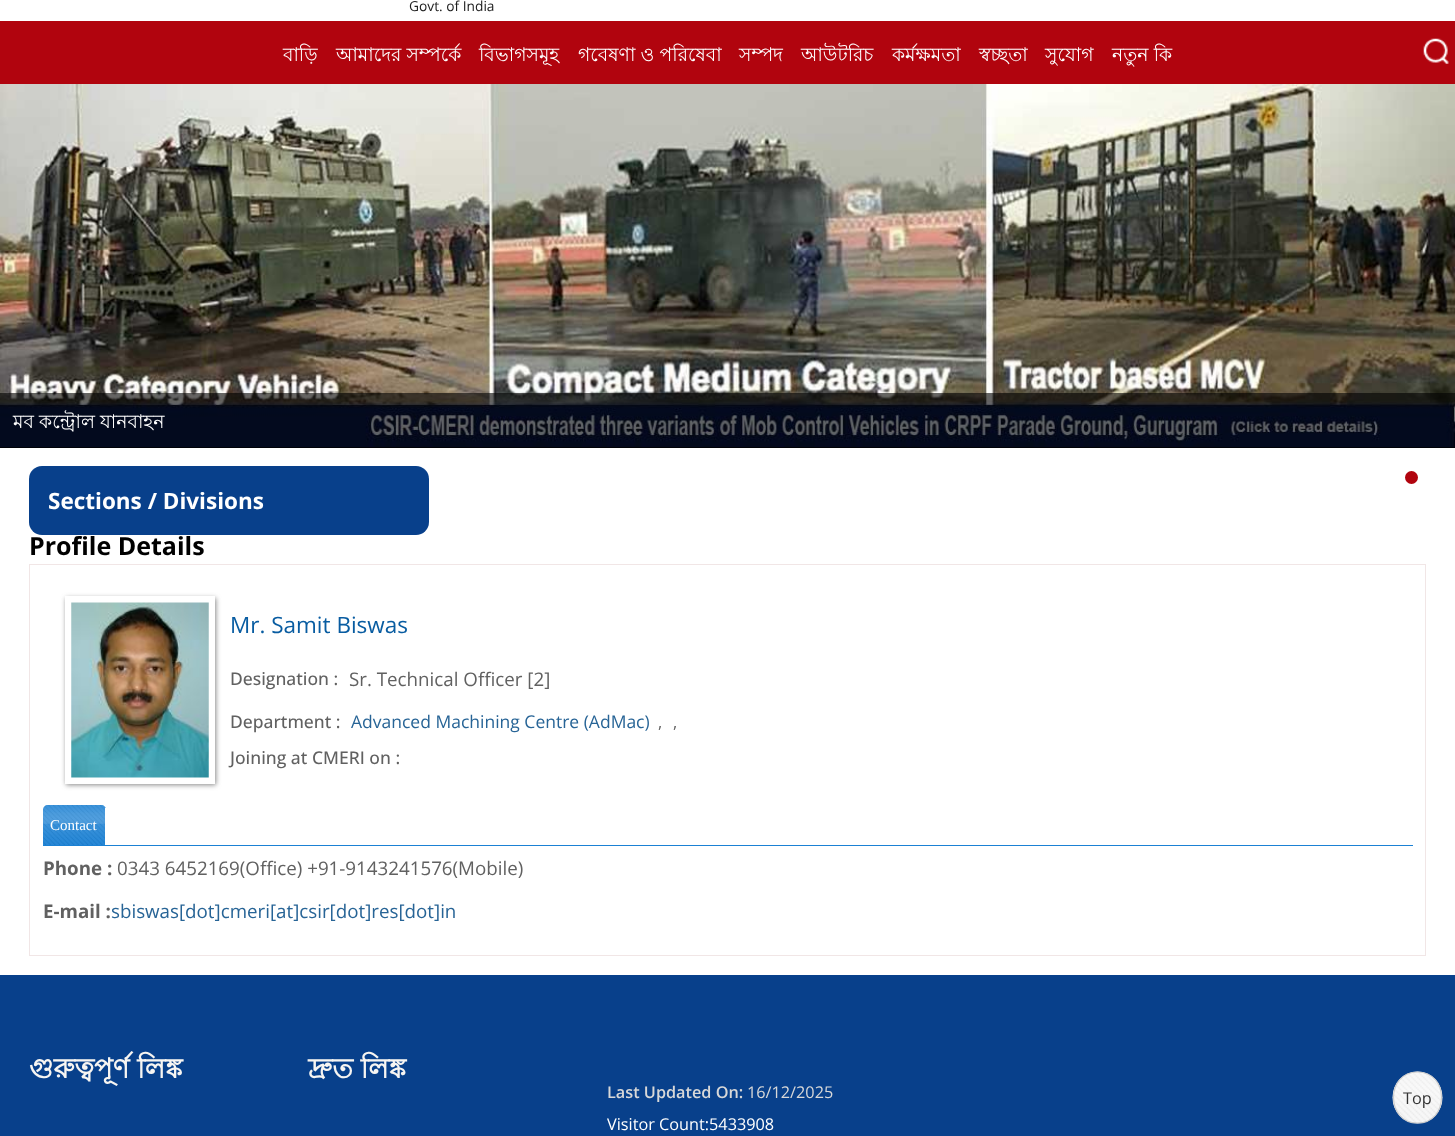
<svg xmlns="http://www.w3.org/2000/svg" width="1455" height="1136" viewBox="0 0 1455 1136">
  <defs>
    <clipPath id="clip1"><path d="M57 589H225V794H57ZM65 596H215V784H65Z" clip-rule="evenodd"/></clipPath>
    <filter id="blur1" x="-50%" y="-200%" width="200%" height="500%"><feGaussianBlur stdDeviation="2.5"/></filter>
  </defs>
  <rect width="100%" height="100%" fill="#ffffff"/>
  <text x="409" y="11" font-family="Open Sans" font-size="13.75" fill="#1e1e1e">Govt. of India</text>
  <rect x="0" y="21" width="1455" height="63" fill="#b1040e"/>
  <text x="283" y="61" font-family="Lohit Bengali" font-size="18.75" fill="#ffffff">বাড়ি</text>
  <text x="336" y="61" font-family="Lohit Bengali" font-size="18.75" fill="#ffffff">আমাদের সম্পর্কে</text>
  <text x="479" y="61" font-family="Lohit Bengali" font-size="18.75" fill="#ffffff">বিভাগসমূহ</text>
  <text x="578" y="61" font-family="Lohit Bengali" font-size="18.75" fill="#ffffff">গবেষণা ও পরিষেবা</text>
  <text x="739" y="61" font-family="Lohit Bengali" font-size="18.75" fill="#ffffff">সম্পদ</text>
  <text x="801" y="61" font-family="Lohit Bengali" font-size="18.75" fill="#ffffff">আউটরিচ</text>
  <text x="892" y="61" font-family="Lohit Bengali" font-size="18.75" fill="#ffffff">কর্মক্ষমতা</text>
  <text x="979" y="61" font-family="Lohit Bengali" font-size="18.75" fill="#ffffff">স্বচ্ছতা</text>
  <text x="1045" y="61" font-family="Lohit Bengali" font-size="18.75" fill="#ffffff">সুযোগ</text>
  <text x="1112" y="61" font-family="Lohit Bengali" font-size="18.75" fill="#ffffff">নতুন কি</text>
  <image x="1423" y="38" width="26" height="26" href="img1.png"/>
  <rect x="0" y="447" width="1455" height="1" fill="#000000"/>
  <image x="0" y="84" width="1455" height="364" href="img2.png"/>
  <rect x="0" y="393" width="1455" height="55" fill="#000000" fill-opacity="0.6"/>
  <text x="13" y="428" font-family="Lohit Bengali" font-size="18.75" fill="#ffffff">মব কন্ট্রোল যানবাহন</text>
  <circle cx="1411.5" cy="477.5" r="6.5" fill="#b1040e"/>
  <rect x="29" y="466" width="400" height="69" rx="13" fill="#08408b"/>
  <text x="48" y="509" font-family="Open Sans" font-size="22.5" font-weight="bold" fill="#ffffff">Sections / Divisions</text>
  <text x="29" y="555" font-family="Open Sans" font-size="25" font-weight="bold" fill="#000000">Profile Details</text>
  <rect x="29.5" y="564.5" width="1396" height="391" fill="none" stroke="#f1e6e6"/>
  <g clip-path="url(#clip1)">
    <rect x="66" y="598" width="150" height="187" fill="#888888" filter="url(#blur1)"/>
  </g>
  <image x="71" y="602" width="138" height="176" href="img3.png"/>
  <text x="230" y="633" font-family="Open Sans" font-size="22.5" fill="#085ca1">Mr. Samit Biswas</text>
  <text x="230" y="685" font-family="Open Sans" font-size="17.5" font-weight="500" fill="#616161">Designation :</text>
  <text x="349" y="686" font-family="Open Sans" font-size="18.75" fill="#616161">Sr. Technical Officer [2]</text>
  <text x="230" y="728" font-family="Open Sans" font-size="17.5" font-weight="500" fill="#616161">Department :</text>
  <text x="351" y="728" font-family="Open Sans" font-size="17.5" fill="#276496">Advanced Machining Centre (AdMac)</text>
  <text x="658" y="728" font-family="Open Sans" font-size="16.25" fill="#616161">,</text>
  <text x="673" y="728" font-family="Open Sans" font-size="16.25" fill="#616161">,</text>
  <text x="230" y="764" font-family="Open Sans" font-size="17.5" font-weight="500" fill="#616161">Joining at CMERI on :</text>
  <rect x="43" y="845" width="1370" height="1" fill="#1b81d4"/>
  <path d="M48 805H101C104 805 106 807 106 810V845H43V810C43 807 45 805 48 805Z" fill="#1b81d4"/>
  <image x="43" y="805" width="63" height="40" href="img4.png"/>
  <rect x="105" y="808" width="1" height="37" fill="#ffffff"/>
  <text x="50" y="830" font-family="Liberation Serif" font-size="15" fill="#ffffff">Contact</text>
  <text x="43" y="875" font-family="Open Sans" font-size="18.75" font-weight="bold" fill="#616161">Phone :</text>
  <text x="117" y="875" font-family="Open Sans" font-size="18.75" fill="#616161">0343 6452169(Office) +91-9143241576(Mobile)</text>
  <text x="43" y="918" font-family="Open Sans" font-size="18.75" font-weight="bold" fill="#616161">E-mail :</text>
  <text x="111" y="918" font-family="Open Sans" font-size="18.75" fill="#276496">sbiswas[dot]cmeri[at]csir[dot]res[dot]in</text>
  <rect x="0" y="975" width="1455" height="161" fill="#08408b"/>
  <text x="29" y="1078" font-family="Lohit Bengali" font-size="27.5" font-weight="bold" fill="#f7f5f2">গুরুত্বপূর্ণ লিঙ্ক</text>
  <text x="308" y="1078" font-family="Lohit Bengali" font-size="27.5" font-weight="bold" fill="#f7f5f2">দ্রুত লিঙ্ক</text>
  <text x="607" y="1098" font-family="Open Sans" font-size="16.25" font-weight="600" fill="#d8d8d8">Last Updated On:</text>
  <text x="747" y="1098" font-family="Open Sans" font-size="16.25" fill="#d8d8d8">16/12/2025</text>
  <text x="607" y="1130" font-family="Open Sans" font-size="16.25" fill="#ffffff">Visitor Count:5433908</text>
  <ellipse cx="1417.5" cy="1097.5" rx="25" ry="26" fill="#f7f7f7"/>
  <image x="1393" y="1072" width="49" height="51" href="img5.png"/>
  <path d="M1417.5 1072C1449.5 1072 1449.5 1123 1417.5 1123C1385.5 1123 1385.5 1072 1417.5 1072Z" fill="none" stroke="#cccccc" stroke-width="1.2"/>
  <text x="1403" y="1104" font-family="Open Sans" font-size="16.25" fill="#333333">Top</text>
</svg>
